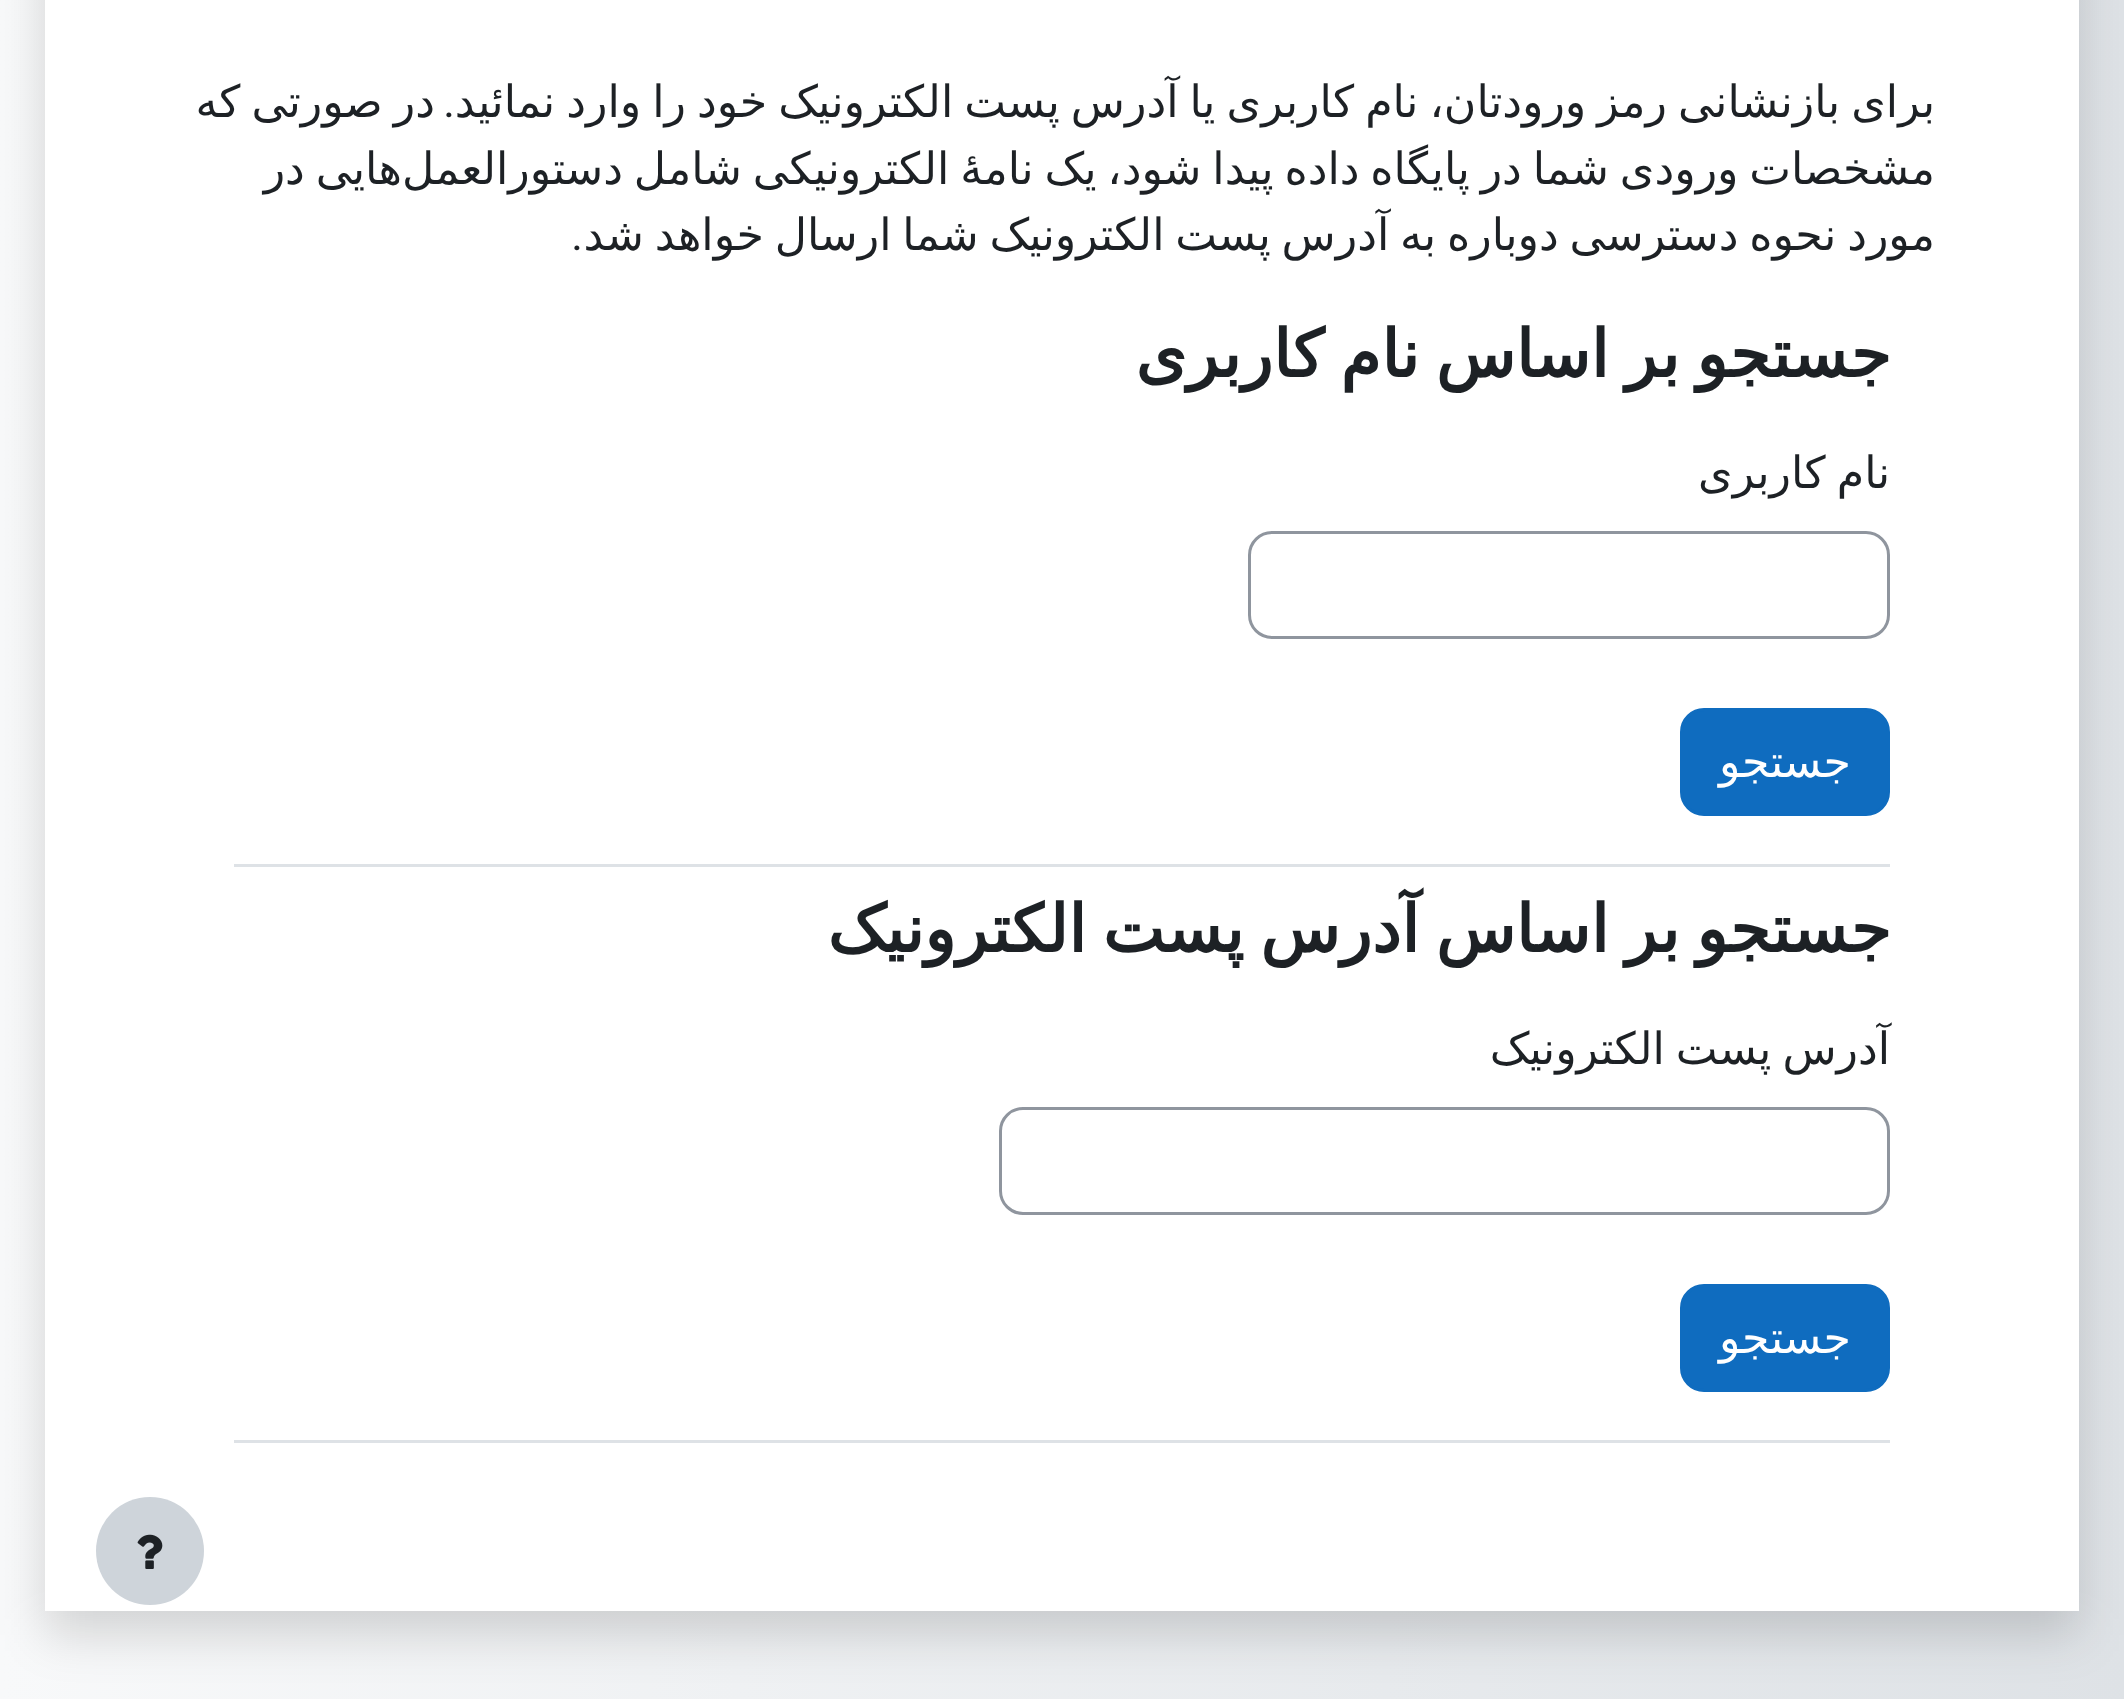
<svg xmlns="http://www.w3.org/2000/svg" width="2124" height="1699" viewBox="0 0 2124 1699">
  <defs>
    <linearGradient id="g1" gradientUnits="userSpaceOnUse" x1="0" y1="743" x2="2124" y2="742"><stop offset="0" stop-color="#f8f9fa"/><stop offset="1" stop-color="#dee2e6"/></linearGradient>
    <filter id="blur1" x="-50%" y="-200%" width="200%" height="500%"><feGaussianBlur stdDeviation="24"/></filter>
  </defs>
  <rect width="100%" height="100%" fill="#ffffff"/>
  <rect x="0" y="0" width="2124" height="1699" fill="url(#g1)"/>
  <rect x="45" y="-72" width="2034" height="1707" fill="#000000" fill-opacity="0.15" filter="url(#blur1)"/>
  <rect x="45" y="0" width="2034" height="1611" fill="#ffffff"/>
  <text x="1935" y="117" word-spacing="-3" font-family="DejaVu Sans" font-size="44.35" direction="rtl" fill="#1d2125">برای بازنشانی رمز ورودتان، نام کاربری یا آدرس پست الکترونیک خود را وارد نمائید</text>
  <text x="455" y="117" font-family="Roboto" font-size="44.35" direction="rtl" fill="#1d2125">.</text>
  <text x="435" y="117" word-spacing="-3" font-family="DejaVu Sans" font-size="44.35" direction="rtl" fill="#1d2125">در صورتی که</text>
  <text x="1935" y="184" word-spacing="-3.25" font-family="DejaVu Sans" font-size="44.35" direction="rtl" fill="#1d2125">مشخصات ورودی شما در پایگاه داده پیدا شود، یک نامهٔ الکترونیکی شامل دستورالعمل‌هایی در</text>
  <text x="1935" y="250" word-spacing="-3.25" font-family="DejaVu Sans" font-size="44.35" direction="rtl" fill="#1d2125">مورد نحوه دسترسی دوباره به آدرس پست الکترونیک شما ارسال خواهد شد</text>
  <text x="583" y="250" font-family="Roboto" font-size="44.35" direction="rtl" fill="#1d2125">.</text>
  <rect x="234" y="864" width="1656" height="3" fill="#dee2e6"/>
  <text x="1891" y="377" word-spacing="-4.5" font-family="DejaVu Sans" font-size="65.6" font-weight="bold" direction="rtl" fill="#1d2125">جستجو بر اساس نام کاربری</text>
  <text x="1890" y="488" word-spacing="-3" font-family="DejaVu Sans" font-size="44.35" direction="rtl" fill="#1d2125">نام کاربری</text>
  <rect x="1249.5" y="532.5" width="639" height="105" rx="22.5" fill="none" stroke="#8f959e" stroke-width="3"/>
  <rect x="1681.5" y="709.5" width="207" height="105" rx="22.5" fill="#0f6cbf" stroke="#0f6cbf" stroke-width="3"/>
  <text x="1851" y="777" font-family="DejaVu Sans" font-size="44.35" direction="rtl" fill="#ffffff">جستجو</text>
  <rect x="234" y="1440" width="1656" height="3" fill="#dee2e6"/>
  <text x="1891" y="952" word-spacing="-4.5" font-family="DejaVu Sans" font-size="65.6" font-weight="bold" direction="rtl" fill="#1d2125">جستجو بر اساس آدرس پست الکترونیک</text>
  <text x="1890" y="1064" word-spacing="-3" font-family="DejaVu Sans" font-size="44.35" direction="rtl" fill="#1d2125">آدرس پست الکترونیک</text>
  <rect x="1000.5" y="1108.5" width="888" height="105" rx="22.5" fill="none" stroke="#8f959e" stroke-width="3"/>
  <rect x="1681.5" y="1285.5" width="207" height="105" rx="22.5" fill="#0f6cbf" stroke="#0f6cbf" stroke-width="3"/>
  <text x="1851" y="1353" font-family="DejaVu Sans" font-size="44.35" direction="rtl" fill="#ffffff">جستجو</text>
  <circle cx="150" cy="1551" r="54" fill="#ced4da"/>
  <image x="137" y="1534" width="26" height="35" href="img1.png"/>
</svg>
